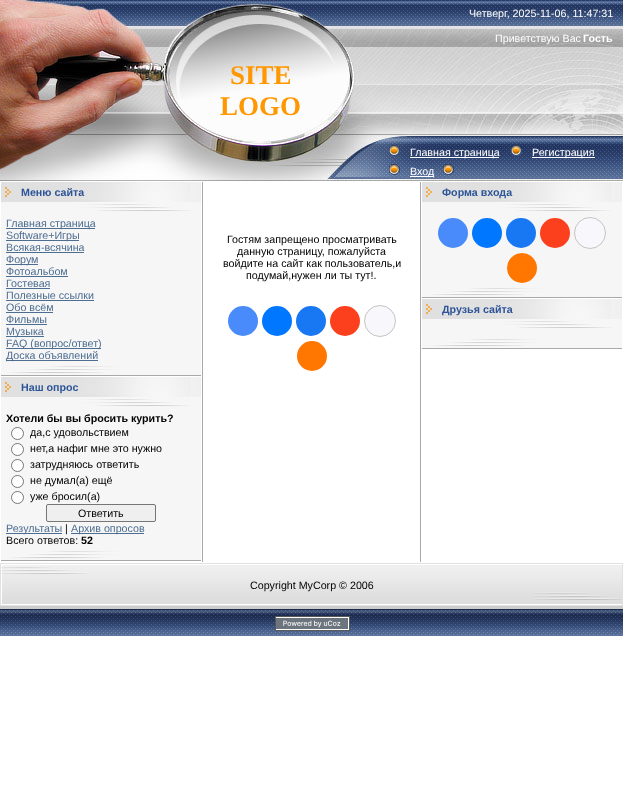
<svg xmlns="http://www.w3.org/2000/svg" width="623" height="793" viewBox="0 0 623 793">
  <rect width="100%" height="100%" fill="#ffffff"/>
  <image x="0" y="0" width="360" height="181" href="img1.png"/>
  <text x="230" y="84" font-family="Liberation Serif" font-size="27" font-weight="bold" fill="#ff9800">SITE</text>
  <text x="220" y="115" font-family="Liberation Serif" font-size="27" font-weight="bold" fill="#ff9800">LOGO</text>
  <image x="360" y="0" width="263" height="181" href="img2.png"/>
  <text x="469" y="17" font-family="Liberation Sans" font-size="10.7" fill="#ffffff">Четверг, 2025-11-06, 11:47:31</text>
  <text x="495" y="42" font-family="Liberation Sans" font-size="10.7" fill="#ffffff">Приветствую Вас</text>
  <text x="583" y="42" font-family="Liberation Sans" font-size="10.7" font-weight="bold" fill="#ffffff">Гость</text>
  <image x="389" y="145" width="11" height="11" href="img3.png"/>
  <rect x="410" y="157" width="89" height="1" fill="#ffffff"/>
  <text x="410" y="156" font-family="Liberation Sans" font-size="10.7" fill="#ffffff">Главная страница</text>
  <image x="511" y="145" width="11" height="11" href="img4.png"/>
  <rect x="532" y="157" width="63" height="1" fill="#ffffff"/>
  <text x="532" y="156" font-family="Liberation Sans" font-size="10.7" fill="#ffffff">Регистрация</text>
  <image x="389" y="164" width="11" height="11" href="img5.png"/>
  <rect x="410" y="176" width="24" height="1" fill="#ffffff"/>
  <text x="410" y="175" font-family="Liberation Sans" font-size="10.7" fill="#ffffff">Вход</text>
  <image x="443" y="164" width="11" height="11" href="img6.png"/>
  <image x="1" y="182" width="200" height="20" href="img7.png"/>
  <text x="21" y="196" font-family="Liberation Sans" font-size="10.7" font-weight="bold" fill="#2c5497">Меню сайта</text>
  <image x="1" y="202" width="200" height="10" href="img8.png"/>
  <rect x="1" y="212" width="200" height="154" fill="#f6f6f6"/>
  <rect x="6" y="228" width="89" height="1" fill="#4d6d91"/>
  <text x="6" y="227" font-family="Liberation Sans" font-size="10.7" fill="#4d6d91">Главная страница</text>
  <rect x="6" y="240" width="73" height="1" fill="#4d6d91"/>
  <text x="6" y="239" font-family="Liberation Sans" font-size="10.7" fill="#4d6d91">Software+Игры</text>
  <text x="6" y="251" font-family="Liberation Sans" font-size="10.7" fill="#4d6d91">Всякая-всячина</text>
  <rect x="6" y="252" width="78" height="1" fill="#4d6d91"/>
  <rect x="6" y="264" width="32" height="1" fill="#4d6d91"/>
  <text x="6" y="263" font-family="Liberation Sans" font-size="10.7" fill="#4d6d91">Форум</text>
  <text x="6" y="275" font-family="Liberation Sans" font-size="10.7" fill="#4d6d91">Фотоальбом</text>
  <rect x="6" y="276" width="62" height="1" fill="#4d6d91"/>
  <text x="6" y="287" font-family="Liberation Sans" font-size="10.7" fill="#4d6d91">Гостевая</text>
  <rect x="6" y="288" width="44" height="1" fill="#4d6d91"/>
  <text x="6" y="299" font-family="Liberation Sans" font-size="10.7" fill="#4d6d91">Полезные ссылки</text>
  <rect x="6" y="300" width="88" height="1" fill="#4d6d91"/>
  <text x="6" y="311" font-family="Liberation Sans" font-size="10.7" fill="#4d6d91">Обо всём</text>
  <rect x="6" y="312" width="47" height="1" fill="#4d6d91"/>
  <text x="6" y="323" font-family="Liberation Sans" font-size="10.7" fill="#4d6d91">Фильмы</text>
  <rect x="6" y="324" width="41" height="1" fill="#4d6d91"/>
  <rect x="6" y="336" width="38" height="1" fill="#4d6d91"/>
  <text x="6" y="335" font-family="Liberation Sans" font-size="10.7" fill="#4d6d91">Музыка</text>
  <rect x="6" y="348" width="95" height="1" fill="#4d6d91"/>
  <text x="6" y="347" font-family="Liberation Sans" font-size="10.7" fill="#4d6d91">FAQ (вопрос/ответ)</text>
  <rect x="6" y="360" width="92" height="1" fill="#4d6d91"/>
  <text x="6" y="359" font-family="Liberation Sans" font-size="10.7" fill="#4d6d91">Доска объявлений</text>
  <image x="1" y="366" width="200" height="10" href="img9.png"/>
  <image x="1" y="377" width="200" height="20" href="img7.png"/>
  <text x="21" y="391" font-family="Liberation Sans" font-size="10.7" font-weight="bold" fill="#2c5497">Наш опрос</text>
  <image x="1" y="397" width="200" height="10" href="img8.png"/>
  <rect x="1" y="407" width="200" height="144" fill="#f6f6f6"/>
  <text x="6" y="422" font-family="Liberation Sans" font-size="10.7" font-weight="bold" fill="#000000">Хотели бы вы бросить курить?</text>
  <circle cx="17.5" cy="433.5" r="6" fill="#ffffff" stroke="#767676"/>
  <text x="30" y="436" font-family="Liberation Sans" font-size="10.7" fill="#000000">да,с удовольствием</text>
  <circle cx="17.5" cy="449.5" r="6" fill="#ffffff" stroke="#767676"/>
  <text x="30" y="452" font-family="Liberation Sans" font-size="10.7" fill="#000000">нет,а нафиг мне это нужно</text>
  <circle cx="17.5" cy="465.5" r="6" fill="#ffffff" stroke="#767676"/>
  <text x="30" y="468" font-family="Liberation Sans" font-size="10.7" fill="#000000">затрудняюсь ответить</text>
  <circle cx="17.5" cy="481.5" r="6" fill="#ffffff" stroke="#767676"/>
  <text x="30" y="484" font-family="Liberation Sans" font-size="10.7" fill="#000000">не думал(а) ещё</text>
  <circle cx="17.5" cy="497.5" r="6" fill="#ffffff" stroke="#767676"/>
  <text x="30" y="500" font-family="Liberation Sans" font-size="10.7" fill="#000000">уже бросил(а)</text>
  <rect x="46.5" y="504.5" width="109" height="17" rx="1.5" fill="#efefef" stroke="#767676"/>
  <text x="78" y="517" font-family="Liberation Sans" font-size="10.7" fill="#000000">Ответить</text>
  <rect x="6" y="533" width="56" height="1" fill="#4d6d91"/>
  <text x="6" y="532" font-family="Liberation Sans" font-size="10.7" fill="#4d6d91">Результаты</text>
  <text x="65" y="532" font-family="Liberation Sans" font-size="10.7" fill="#000000">|</text>
  <rect x="71" y="533" width="73" height="1" fill="#4d6d91"/>
  <text x="71" y="532" font-family="Liberation Sans" font-size="10.7" fill="#4d6d91">Архив опросов</text>
  <text x="6" y="544" font-family="Liberation Sans" font-size="10.7" fill="#000000">Всего ответов:</text>
  <text x="81" y="544" font-family="Liberation Sans" font-size="10.7" font-weight="bold" fill="#000000">52</text>
  <image x="1" y="551" width="200" height="10" href="img9.png"/>
  <rect x="420" y="182" width="1" height="380" fill="#a9a9a9"/>
  <rect x="202" y="182" width="1" height="380" fill="#a9a9a9"/>
  <text x="227" y="243" font-family="Liberation Sans" font-size="10.7" fill="#000000">Гостям запрещено просматривать</text>
  <text x="237" y="255" font-family="Liberation Sans" font-size="10.7" fill="#000000">данную страницу, пожалуйста</text>
  <text x="223" y="267" font-family="Liberation Sans" font-size="10.7" fill="#000000">войдите на сайт как пользователь,и</text>
  <text x="246" y="279" font-family="Liberation Sans" font-size="10.7" fill="#000000">подумай,нужен ли ты тут!.</text>
  <circle cx="243" cy="321" r="15" fill="#498bfa"/>
  <circle cx="277" cy="321" r="15" fill="#0077ff"/>
  <circle cx="311" cy="321" r="15" fill="#1877f2"/>
  <circle cx="345" cy="321" r="15" fill="#fc3f1d"/>
  <circle cx="380" cy="321" r="15.5" fill="#f8f8fc" stroke="#c4c4c4"/>
  <circle cx="312" cy="356" r="15" fill="#ff7700"/>
  <image x="422" y="182" width="200" height="20" href="img7.png"/>
  <text x="442" y="196" font-family="Liberation Sans" font-size="10.7" font-weight="bold" fill="#2c5497">Форма входа</text>
  <image x="422" y="202" width="200" height="10" href="img8.png"/>
  <rect x="422" y="212" width="200" height="76" fill="#f6f6f6"/>
  <circle cx="453" cy="233" r="15" fill="#498bfa"/>
  <circle cx="487" cy="233" r="15" fill="#0077ff"/>
  <circle cx="521" cy="233" r="15" fill="#1877f2"/>
  <circle cx="555" cy="233" r="15" fill="#fc3f1d"/>
  <circle cx="590" cy="233" r="15.5" fill="#f8f8fc" stroke="#c4c4c4"/>
  <circle cx="522" cy="268" r="15" fill="#ff7700"/>
  <image x="422" y="288" width="200" height="10" href="img9.png"/>
  <image x="422" y="299" width="200" height="20" href="img7.png"/>
  <text x="442" y="313" font-family="Liberation Sans" font-size="10.7" font-weight="bold" fill="#2c5497">Друзья сайта</text>
  <image x="422" y="319" width="200" height="10" href="img8.png"/>
  <rect x="422" y="329" width="200" height="10" fill="#f6f6f6"/>
  <image x="422" y="339" width="200" height="10" href="img9.png"/>
  <rect x="0.5" y="563.5" width="622" height="42" fill="none" stroke="#e1e1e1"/>
  <image x="90" y="565" width="532" height="39" href="img10.png"/>
  <image x="1" y="565" width="89" height="39" href="img11.png"/>
  <text x="250" y="589" font-family="Liberation Sans" font-size="10.7" fill="#000000">Copyright MyCorp © 2006</text>
  <image x="531" y="592" width="91" height="8" href="img12.png"/>
  <image x="0" y="606" width="623" height="30" href="img13.png"/>
  <image x="275" y="616" width="75" height="15" href="img14.png"/>
</svg>
